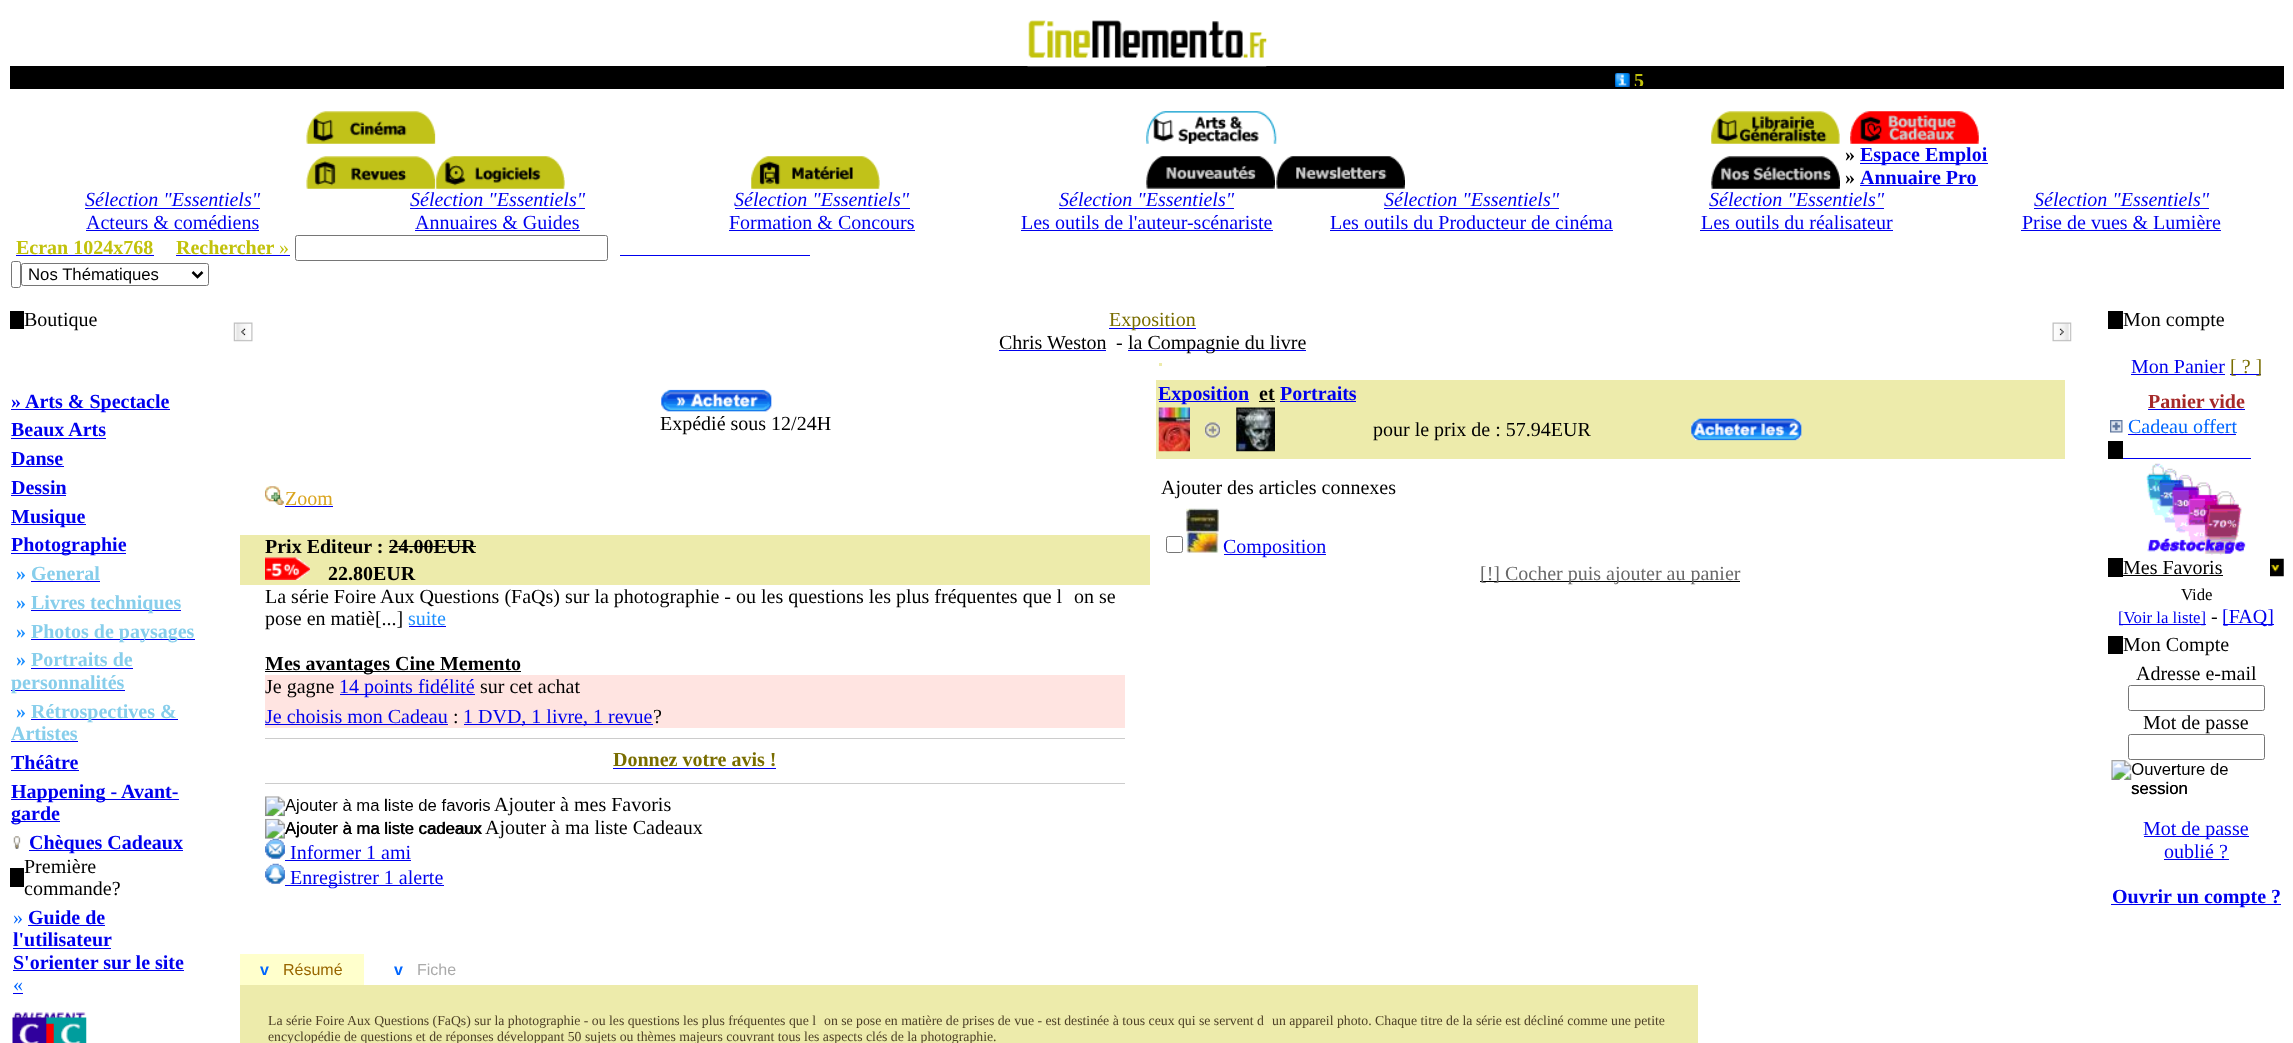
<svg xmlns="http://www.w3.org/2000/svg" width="2293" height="1043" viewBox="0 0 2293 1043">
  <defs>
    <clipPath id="clip1"><rect x="648" y="70" width="1000" height="16"/></clipPath>
  </defs>
  <rect width="100%" height="100%" fill="#ffffff"/>
  <rect x="10" y="66" width="2274" height="23" fill="#000000"/>
  <image x="1027" y="20" width="240" height="47" href="img1.png"/>
  <image x="1615" y="73" width="15" height="14" href="img2.png"/>
  <g clip-path="url(#clip1)">
    <text x="1634" y="87" font-family="Liberation Serif" font-size="20" font-weight="bold" fill="#c2c20c">5</text>
  </g>
  <image x="306" y="111" width="130" height="33" href="img3.png"/>
  <image x="1146" y="111" width="131" height="33" href="img4.png"/>
  <image x="1711" y="111" width="129" height="33" href="img5.png"/>
  <image x="1850" y="111" width="129" height="33" href="img6.png"/>
  <image x="306" y="156" width="130" height="33" href="img7.png"/>
  <image x="436" y="156" width="129" height="33" href="img8.png"/>
  <image x="751" y="156" width="129" height="33" href="img9.png"/>
  <image x="1146" y="156" width="129" height="33" href="img10.png"/>
  <image x="1276" y="156" width="129" height="33" href="img11.png"/>
  <image x="1711" y="156" width="129" height="33" href="img12.png"/>
  <text x="1845" y="161" font-family="Liberation Serif" font-size="20" font-weight="bold" fill="#000000">»</text>
  <rect x="1860" y="163" width="128" height="1" fill="#0000ee"/>
  <text x="1860" y="161" font-family="Liberation Serif" font-size="20" font-weight="bold" fill="#0000ee">Espace Emploi</text>
  <text x="1845" y="184" font-family="Liberation Serif" font-size="20" font-weight="bold" fill="#000000">»</text>
  <text x="1860" y="184" font-family="Liberation Serif" font-size="20" font-weight="bold" fill="#0000ee">Annuaire Pro</text>
  <rect x="1860" y="185" width="118" height="1" fill="#0000ee"/>
  <text x="85" y="206" font-family="Liberation Serif" font-size="20" font-style="italic" fill="#0000ee">Sélection "Essentiels"</text>
  <rect x="85" y="208" width="175" height="1" fill="#0000ee"/>
  <text x="86" y="229" font-family="Liberation Serif" font-size="20" fill="#0000ee">Acteurs &amp; comédiens</text>
  <rect x="86" y="230" width="173" height="1" fill="#0000ee"/>
  <text x="410" y="206" font-family="Liberation Serif" font-size="20" font-style="italic" fill="#0000ee">Sélection "Essentiels"</text>
  <rect x="410" y="208" width="175" height="1" fill="#0000ee"/>
  <text x="415" y="229" font-family="Liberation Serif" font-size="20" fill="#0000ee">Annuaires &amp; Guides</text>
  <rect x="415" y="230" width="165" height="1" fill="#0000ee"/>
  <text x="734" y="206" font-family="Liberation Serif" font-size="20" font-style="italic" fill="#0000ee">Sélection "Essentiels"</text>
  <rect x="735" y="208" width="175" height="1" fill="#0000ee"/>
  <text x="729" y="229" font-family="Liberation Serif" font-size="20" fill="#0000ee">Formation &amp; Concours</text>
  <rect x="729" y="230" width="186" height="1" fill="#0000ee"/>
  <text x="1059" y="206" font-family="Liberation Serif" font-size="20" font-style="italic" fill="#0000ee">Sélection "Essentiels"</text>
  <rect x="1059" y="208" width="175" height="1" fill="#0000ee"/>
  <text x="1021" y="229" font-family="Liberation Serif" font-size="20" fill="#0000ee">Les outils de l'auteur-scénariste</text>
  <rect x="1021" y="230" width="252" height="1" fill="#0000ee"/>
  <text x="1384" y="206" font-family="Liberation Serif" font-size="20" font-style="italic" fill="#0000ee">Sélection "Essentiels"</text>
  <rect x="1384" y="208" width="175" height="1" fill="#0000ee"/>
  <text x="1330" y="229" font-family="Liberation Serif" font-size="20" fill="#0000ee">Les outils du Producteur de cinéma</text>
  <rect x="1330" y="230" width="283" height="1" fill="#0000ee"/>
  <text x="1709" y="206" font-family="Liberation Serif" font-size="20" font-style="italic" fill="#0000ee">Sélection "Essentiels"</text>
  <rect x="1709" y="208" width="175" height="1" fill="#0000ee"/>
  <text x="1701" y="229" font-family="Liberation Serif" font-size="20" fill="#0000ee">Les outils du réalisateur</text>
  <rect x="1700" y="230" width="193" height="1" fill="#0000ee"/>
  <text x="2034" y="206" font-family="Liberation Serif" font-size="20" font-style="italic" fill="#0000ee">Sélection "Essentiels"</text>
  <rect x="2034" y="208" width="175" height="1" fill="#0000ee"/>
  <text x="2022" y="229" font-family="Liberation Serif" font-size="20" fill="#0000ee">Prise de vues &amp; Lumière</text>
  <rect x="2021" y="230" width="200" height="1" fill="#0000ee"/>
  <text x="16" y="254" font-family="Liberation Serif" font-size="20" font-weight="bold" fill="#c2c20c">Ecran 1024x768</text>
  <rect x="16" y="255" width="138" height="1" fill="#0000ee"/>
  <text x="176" y="254" font-family="Liberation Serif" font-size="20" font-weight="bold" fill="#c2c20c">Rechercher</text>
  <text x="279" y="254" font-family="Liberation Serif" font-size="20" fill="#c2c20c">»</text>
  <rect x="176" y="255" width="114" height="1" fill="#0000ee"/>
  <rect x="295.5" y="235.5" width="312" height="25" rx="2" fill="none" stroke="#767676"/>
  <rect x="620" y="255" width="190" height="1" fill="#0000ee"/>
  <rect x="11.5" y="261.5" width="9" height="26" rx="2" fill="none" stroke="#767676"/>
  <rect x="21.5" y="263.5" width="187" height="22" rx="2" fill="none" stroke="#767676"/>
  <path d="M192.5 272L197.5 277L202.5 272" fill="none" stroke="#000000" stroke-width="2.5"/>
  <text x="28" y="280" font-family="Liberation Sans" font-size="16.75" fill="#000000">Nos Thématiques</text>
  <rect x="10" y="311" width="14" height="18" fill="#000000"/>
  <text x="24" y="326" font-family="Liberation Serif" font-size="20" fill="#000000">Boutique</text>
  <text x="11" y="408" font-family="Liberation Serif" font-size="20" font-weight="bold" fill="#0000ee">»</text>
  <rect x="11" y="409" width="159" height="1" fill="#0000ee"/>
  <text x="25" y="408" font-family="Liberation Serif" font-size="20" font-weight="bold" fill="#0000ee">Arts &amp; Spectacle</text>
  <text x="11" y="436" font-family="Liberation Serif" font-size="20" font-weight="bold" fill="#0000ee">Beaux Arts</text>
  <rect x="11" y="438" width="95" height="1" fill="#0000ee"/>
  <text x="11" y="465" font-family="Liberation Serif" font-size="20" font-weight="bold" fill="#0000ee">Danse</text>
  <rect x="11" y="466" width="53" height="1" fill="#0000ee"/>
  <text x="11" y="494" font-family="Liberation Serif" font-size="20" font-weight="bold" fill="#0000ee">Dessin</text>
  <rect x="11" y="495" width="55" height="1" fill="#0000ee"/>
  <rect x="11" y="524" width="75" height="1" fill="#0000ee"/>
  <text x="11" y="523" font-family="Liberation Serif" font-size="20" font-weight="bold" fill="#0000ee">Musique</text>
  <rect x="11" y="553" width="115" height="1" fill="#0000ee"/>
  <text x="11" y="551" font-family="Liberation Serif" font-size="20" font-weight="bold" fill="#0000ee">Photographie</text>
  <text x="16" y="580" font-family="Liberation Serif" font-size="20" font-weight="bold" fill="#1e90ff">»</text>
  <text x="31" y="580" font-family="Liberation Serif" font-size="20" font-weight="bold" fill="#87ceeb">General</text>
  <rect x="31" y="581" width="69" height="1" fill="#0000ee"/>
  <text x="16" y="609" font-family="Liberation Serif" font-size="20" font-weight="bold" fill="#1e90ff">»</text>
  <rect x="31" y="610" width="150" height="1" fill="#0000ee"/>
  <text x="31" y="609" font-family="Liberation Serif" font-size="20" font-weight="bold" fill="#87ceeb">Livres techniques</text>
  <text x="16" y="638" font-family="Liberation Serif" font-size="20" font-weight="bold" fill="#1e90ff">»</text>
  <rect x="31" y="639" width="164" height="1" fill="#0000ee"/>
  <text x="31" y="638" font-family="Liberation Serif" font-size="20" font-weight="bold" fill="#87ceeb">Photos de paysages</text>
  <text x="16" y="666" font-family="Liberation Serif" font-size="20" font-weight="bold" fill="#1e90ff">»</text>
  <text x="31" y="666" font-family="Liberation Serif" font-size="20" font-weight="bold" fill="#87ceeb">Portraits de</text>
  <rect x="31" y="668" width="102" height="1" fill="#0000ee"/>
  <rect x="11" y="690" width="114" height="1" fill="#0000ee"/>
  <text x="11" y="689" font-family="Liberation Serif" font-size="20" font-weight="bold" fill="#87ceeb">personnalités</text>
  <text x="16" y="718" font-family="Liberation Serif" font-size="20" font-weight="bold" fill="#1e90ff">»</text>
  <rect x="31" y="719" width="147" height="1" fill="#0000ee"/>
  <text x="31" y="718" font-family="Liberation Serif" font-size="20" font-weight="bold" fill="#87ceeb">Rétrospectives &amp;</text>
  <text x="11" y="740" font-family="Liberation Serif" font-size="20" font-weight="bold" fill="#87ceeb">Artistes</text>
  <rect x="11" y="741" width="67" height="1" fill="#0000ee"/>
  <text x="11" y="769" font-family="Liberation Serif" font-size="20" font-weight="bold" fill="#0000ee">Théâtre</text>
  <rect x="11" y="770" width="68" height="1" fill="#0000ee"/>
  <rect x="11" y="799" width="168" height="1" fill="#0000ee"/>
  <text x="11" y="798" font-family="Liberation Serif" font-size="20" font-weight="bold" fill="#0000ee">Happening - Avant-</text>
  <rect x="11" y="821" width="49" height="1" fill="#0000ee"/>
  <text x="11" y="820" font-family="Liberation Serif" font-size="20" font-weight="bold" fill="#0000ee">garde</text>
  <image x="13" y="836" width="8" height="13" href="img13.png"/>
  <rect x="29" y="850" width="154" height="1" fill="#0000ee"/>
  <text x="29" y="849" font-family="Liberation Serif" font-size="20" font-weight="bold" fill="#0000ee">Chèques Cadeaux</text>
  <rect x="10" y="868" width="14" height="19" fill="#000000"/>
  <text x="24" y="873" font-family="Liberation Serif" font-size="20" fill="#000000">Première</text>
  <text x="24" y="895" font-family="Liberation Serif" font-size="20" fill="#000000">commande?</text>
  <text x="13" y="924" font-family="Liberation Serif" font-size="20" fill="#0066ff">»</text>
  <text x="28" y="924" font-family="Liberation Serif" font-size="20" font-weight="bold" fill="#0000ee">Guide de</text>
  <rect x="28" y="925" width="77" height="1" fill="#0000ee"/>
  <text x="13" y="946" font-family="Liberation Serif" font-size="20" font-weight="bold" fill="#0000ee">l'utilisateur</text>
  <rect x="13" y="948" width="98" height="1" fill="#0000ee"/>
  <text x="13" y="969" font-family="Liberation Serif" font-size="20" font-weight="bold" fill="#0000ee">S'orienter sur le site</text>
  <rect x="13" y="970" width="171" height="1" fill="#0000ee"/>
  <text x="13" y="991" font-family="Liberation Serif" font-size="20" fill="#0066ff">«</text>
  <rect x="13" y="993" width="10" height="1" fill="#0000ee"/>
  <image x="12" y="1012" width="75" height="31" href="img14.png"/>
  <image x="233" y="322" width="20" height="20" href="img15.png"/>
  <rect x="1109" y="328" width="87" height="1" fill="#0000ee"/>
  <text x="1109" y="326" font-family="Liberation Serif" font-size="20" fill="#796d00">Exposition</text>
  <text x="999" y="349" font-family="Liberation Serif" font-size="20" fill="#000000">Chris Weston</text>
  <rect x="999" y="350" width="107" height="1" fill="#0000ee"/>
  <text x="1116" y="349" font-family="Liberation Serif" font-size="20" fill="#000000">-</text>
  <rect x="1128" y="350" width="178" height="1" fill="#0000ee"/>
  <text x="1128" y="349" font-family="Liberation Serif" font-size="20" fill="#000000">la Compagnie du livre</text>
  <image x="2052" y="322" width="20" height="20" href="img16.png"/>
  <image x="661" y="389" width="111" height="23" href="img17.png"/>
  <text x="660" y="430" font-family="Liberation Serif" font-size="20" fill="#000000">Expédié sous 12/24H</text>
  <image x="265" y="486" width="19" height="19" href="img18.png"/>
  <text x="285" y="505" font-family="Liberation Serif" font-size="20" fill="#daa520">Zoom</text>
  <rect x="285" y="506" width="48" height="1" fill="#0000ee"/>
  <rect x="240" y="535" width="910" height="50" fill="#edebab"/>
  <text x="265" y="553" font-family="Liberation Serif" font-size="20" font-weight="bold" fill="#000000">Prix Editeur : 24.00EUR</text>
  <rect x="389" y="546" width="87" height="1" fill="#000000"/>
  <image x="265" y="557" width="45" height="23" href="img19.png"/>
  <text x="328" y="580" font-family="Liberation Serif" font-size="20" font-weight="bold" fill="#000000">22.80EUR</text>
  <text x="265" y="603" font-family="Liberation Serif" font-size="20" fill="#000000">La série Foire Aux Questions (FaQs) sur la photographie - ou les questions les plus fréquentes que l</text>
  <text x="1074" y="603" font-family="Liberation Serif" font-size="20" fill="#000000">on se</text>
  <text x="265" y="625" font-family="Liberation Serif" font-size="20" fill="#000000">pose en matiè[...]</text>
  <text x="408" y="625" font-family="Liberation Serif" font-size="20" fill="#1e90ff">suite</text>
  <rect x="409" y="626" width="37" height="1" fill="#0000ee"/>
  <rect x="265" y="671" width="256" height="1" fill="#000000"/>
  <text x="265" y="670" font-family="Liberation Serif" font-size="20" font-weight="bold" fill="#000000">Mes avantages Cine Memento</text>
  <rect x="265" y="675" width="860" height="53" fill="#ffe4e1"/>
  <text x="265" y="693" font-family="Liberation Serif" font-size="20" fill="#000000">Je gagne</text>
  <rect x="340" y="694" width="135" height="1" fill="#0000ee"/>
  <text x="339" y="693" font-family="Liberation Serif" font-size="20" fill="#0000ee">14 points fidélité</text>
  <text x="480" y="693" font-family="Liberation Serif" font-size="20" fill="#000000">sur cet achat</text>
  <text x="265" y="723" font-family="Liberation Serif" font-size="20" fill="#0000ee">Je choisis mon Cadeau</text>
  <rect x="265" y="724" width="183" height="1" fill="#0000ee"/>
  <text x="453" y="723" font-family="Liberation Serif" font-size="20" fill="#000000">:</text>
  <rect x="464" y="724" width="189" height="1" fill="#0000ee"/>
  <text x="463" y="723" font-family="Liberation Serif" font-size="20" fill="#0000ee">1 DVD, 1 livre, 1 revue</text>
  <text x="653" y="723" font-family="Liberation Serif" font-size="20" fill="#000000">?</text>
  <rect x="265" y="738" width="860" height="1" fill="#cccccc"/>
  <text x="613" y="766" font-family="Liberation Serif" font-size="20" font-weight="bold" fill="#796d00">Donnez votre avis !</text>
  <rect x="613" y="768" width="163" height="1" fill="#0000ee"/>
  <rect x="265" y="783" width="860" height="1" fill="#cccccc"/>
  <image x="265" y="796" width="225" height="21" href="img20.png"/>
  <text x="384" y="811" font-family="Liberation Sans" font-size="16.75" fill="#000000">l</text>
  <text x="473" y="811" font-family="Liberation Sans" font-size="16.75" fill="#000000">r</text>
  <text x="494" y="811" font-family="Liberation Serif" font-size="20" fill="#000000">Ajouter à mes Favoris</text>
  <image x="265" y="818" width="216" height="21" href="img21.png"/>
  <text x="285" y="834" font-family="Liberation Sans" font-size="16.75" fill="#000000">Ajouter à ma liste cadeaux</text>
  <text x="485" y="834" font-family="Liberation Serif" font-size="20" fill="#000000">Ajouter à ma liste Cadeaux</text>
  <image x="265" y="838" width="20" height="21" href="img22.png"/>
  <text x="290" y="859" font-family="Liberation Serif" font-size="20" fill="#0000ee">Informer 1 ami</text>
  <rect x="285" y="860" width="126" height="1" fill="#0000ee"/>
  <image x="265" y="863" width="20" height="21" href="img23.png"/>
  <rect x="285" y="885" width="159" height="1" fill="#0000ee"/>
  <text x="290" y="884" font-family="Liberation Serif" font-size="20" fill="#0000ee">Enregistrer 1 alerte</text>
  <rect x="1159" y="363" width="3" height="3" fill="#edebab"/>
  <rect x="1156" y="380" width="909" height="79" fill="#edebab"/>
  <rect x="1159" y="401" width="90" height="1" fill="#0000ee"/>
  <text x="1158" y="400" font-family="Liberation Serif" font-size="20" font-weight="bold" fill="#0000ee">Exposition</text>
  <text x="1259" y="400" font-family="Liberation Serif" font-size="20" font-weight="bold" fill="#000000">et</text>
  <rect x="1259" y="401" width="16" height="1" fill="#000000"/>
  <text x="1280" y="400" font-family="Liberation Serif" font-size="20" font-weight="bold" fill="#0000ee">Portraits</text>
  <rect x="1280" y="401" width="76" height="1" fill="#0000ee"/>
  <image x="1158" y="407" width="32" height="45" href="img24.png"/>
  <image x="1205" y="422" width="15" height="16" href="img25.png"/>
  <image x="1236" y="407" width="39" height="45" href="img26.png"/>
  <text x="1373" y="436" font-family="Liberation Serif" font-size="20" fill="#000000">pour le prix de : 57.94EUR</text>
  <image x="1691" y="418" width="111" height="23" href="img27.png"/>
  <text x="1161" y="494" font-family="Liberation Serif" font-size="20" fill="#000000">Ajouter des articles connexes</text>
  <rect x="1166.5" y="536.5" width="16" height="16" rx="2" fill="none" stroke="#767676"/>
  <image x="1186" y="508" width="33" height="45" href="img28.png"/>
  <rect x="1224" y="554" width="102" height="1" fill="#0000ee"/>
  <text x="1223" y="553" font-family="Liberation Serif" font-size="20" fill="#0000ee">Composition</text>
  <rect x="1480" y="581" width="260" height="1" fill="#000000"/>
  <text x="1480" y="580" font-family="Liberation Serif" font-size="20" fill="#696969">[!] Cocher puis ajouter au panier</text>
  <rect x="240" y="954" width="124" height="31" fill="#ffffcc"/>
  <text x="260" y="975" font-family="Liberation Sans" font-size="16" font-weight="bold" fill="#0066ff">v</text>
  <text x="283" y="975" font-family="Liberation Sans" font-size="16" fill="#996600">Résumé</text>
  <text x="394" y="975" font-family="Liberation Sans" font-size="16" font-weight="bold" fill="#0066ff">v</text>
  <text x="417" y="975" font-family="Liberation Sans" font-size="16" fill="#aaaaaa">Fiche</text>
  <rect x="240" y="985" width="1458" height="58" fill="#edebab"/>
  <text x="268" y="1025" font-family="Liberation Serif" font-size="13.75" fill="#4e4127">La série Foire Aux Questions (FaQs) sur la photographie - ou les questions les plus fréquentes que l</text>
  <text x="824" y="1025" font-family="Liberation Serif" font-size="13.75" fill="#4e4127">on se pose en matière de prises de vue - est destinée à tous ceux qui se servent d</text>
  <text x="1272" y="1025" font-family="Liberation Serif" font-size="13.75" fill="#4e4127">un appareil photo. Chaque titre de la série est décliné comme une petite</text>
  <text x="268" y="1041" font-family="Liberation Serif" font-size="13.75" fill="#4e4127">encyclopédie de questions et de réponses développant 50 sujets ou thèmes majeurs couvrant tous les aspects clés de la photographie.</text>
  <rect x="2108" y="311" width="15" height="18" fill="#000000"/>
  <text x="2123" y="326" font-family="Liberation Serif" font-size="20" fill="#000000">Mon compte</text>
  <text x="2131" y="373" font-family="Liberation Serif" font-size="20" fill="#0000ee">Mon Panier</text>
  <rect x="2131" y="374" width="94" height="1" fill="#0000ee"/>
  <rect x="2230" y="374" width="31" height="1" fill="#0000ee"/>
  <text x="2230" y="373" font-family="Liberation Serif" font-size="20" fill="#796d00">[ ? ]</text>
  <text x="2148" y="408" font-family="Liberation Serif" font-size="20" font-weight="bold" fill="#a52a2a">Panier vide</text>
  <rect x="2148" y="409" width="97" height="1" fill="#0000ee"/>
  <image x="2110" y="420" width="13" height="13" href="img29.png"/>
  <text x="2128" y="433" font-family="Liberation Serif" font-size="20" fill="#0066ff">Cadeau offert</text>
  <rect x="2128" y="434" width="108" height="1" fill="#0000ee"/>
  <rect x="2108" y="441" width="15" height="18" fill="#000000"/>
  <rect x="2123" y="458" width="128" height="1" fill="#0000ee"/>
  <image x="2146" y="463" width="100" height="92" href="img30.png"/>
  <rect x="2108" y="558" width="15" height="19" fill="#000000"/>
  <text x="2123" y="574" font-family="Liberation Serif" font-size="20" fill="#000000">Mes Favoris</text>
  <rect x="2123" y="575" width="100" height="1" fill="#000000"/>
  <image x="2270" y="558" width="14" height="19" href="img31.png"/>
  <text x="2181" y="600" font-family="Liberation Serif" font-size="16.75" fill="#000000">Vide</text>
  <rect x="2119" y="624" width="87" height="1" fill="#0000ee"/>
  <text x="2118" y="623" font-family="Liberation Serif" font-size="16.75" fill="#0000ee">[Voir la liste]</text>
  <text x="2211" y="623" font-family="Liberation Serif" font-size="20" fill="#000000">-</text>
  <rect x="2223" y="624" width="51" height="1" fill="#0000ee"/>
  <text x="2222" y="623" font-family="Liberation Serif" font-size="20" fill="#0000ee">[FAQ]</text>
  <rect x="2108" y="636" width="15" height="18" fill="#000000"/>
  <text x="2123" y="651" font-family="Liberation Serif" font-size="20" fill="#000000">Mon Compte</text>
  <text x="2136" y="680" font-family="Liberation Serif" font-size="20" fill="#000000">Adresse e-mail</text>
  <rect x="2128.5" y="685.5" width="136" height="25" rx="2" fill="none" stroke="#767676"/>
  <text x="2143" y="729" font-family="Liberation Serif" font-size="20" fill="#000000">Mot de passe</text>
  <rect x="2128.5" y="734.5" width="136" height="25" rx="2" fill="none" stroke="#767676"/>
  <image x="2111" y="760" width="117" height="34" href="img32.png"/>
  <text x="2171" y="775" font-family="Liberation Sans" font-size="16.75" fill="#000000">r</text>
  <text x="2131" y="794" font-family="Liberation Sans" font-size="16.75" fill="#000000">session</text>
  <rect x="2144" y="836" width="105" height="1" fill="#0000ee"/>
  <text x="2143" y="835" font-family="Liberation Serif" font-size="20" fill="#0000ee">Mot de passe</text>
  <text x="2164" y="858" font-family="Liberation Serif" font-size="20" fill="#0000ee">oublié ?</text>
  <rect x="2164" y="859" width="65" height="1" fill="#0000ee"/>
  <rect x="2111" y="904" width="170" height="1" fill="#0000ee"/>
  <text x="2112" y="903" font-family="Liberation Serif" font-size="20" font-weight="bold" fill="#0000ee">Ouvrir un compte ?</text>
</svg>
